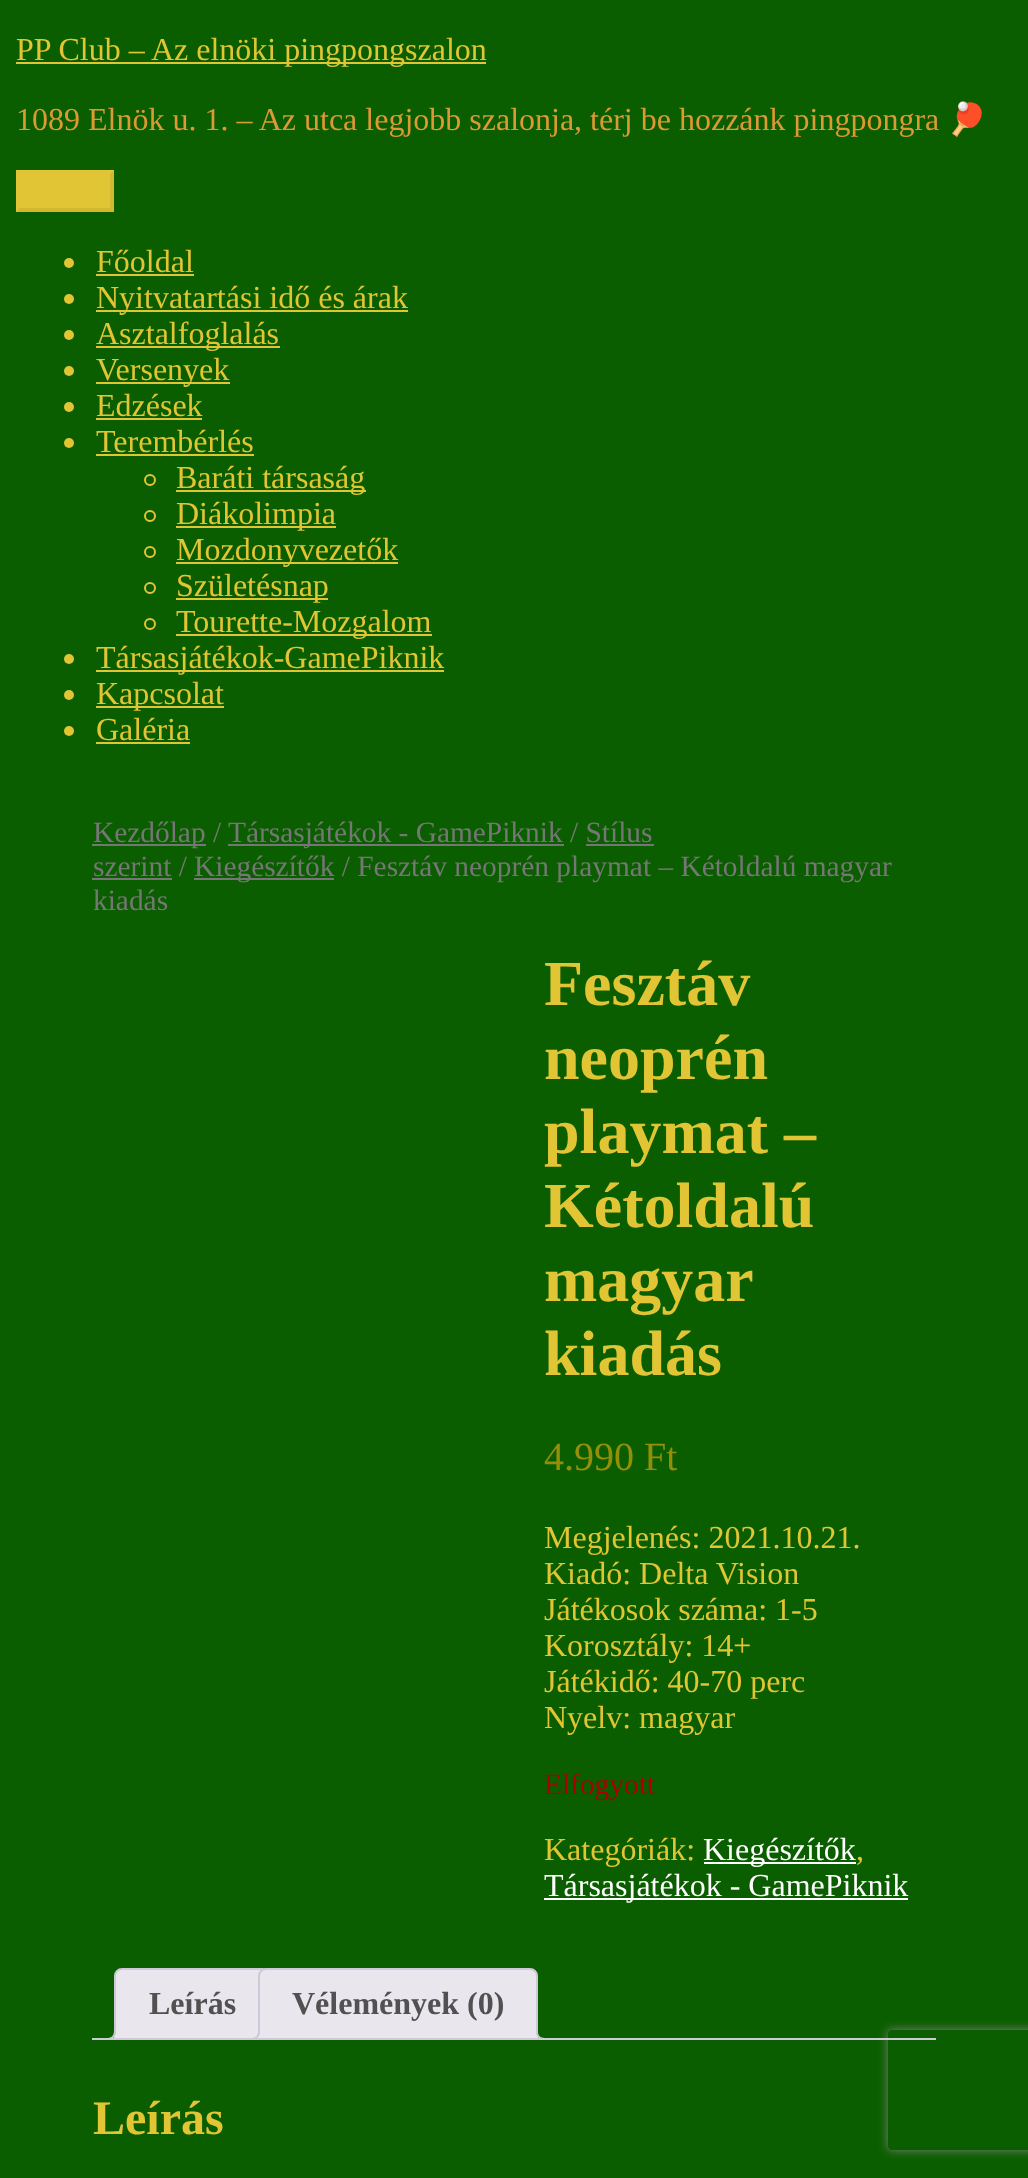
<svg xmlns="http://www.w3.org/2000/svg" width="1028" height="2178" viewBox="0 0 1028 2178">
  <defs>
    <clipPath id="clip1"><rect x="92" y="1968" width="844" height="72"/></clipPath>
    <clipPath id="clip2"><path d="M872 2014H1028V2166H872ZM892 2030H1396C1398 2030 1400 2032 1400 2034V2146C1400 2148 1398 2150 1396 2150H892C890 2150 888 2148 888 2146V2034C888 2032 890 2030 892 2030Z" clip-rule="evenodd"/></clipPath>
    <filter id="blur1" x="-50%" y="-200%" width="200%" height="500%"><feGaussianBlur stdDeviation="5"/></filter>
  </defs>
  <rect width="100%" height="100%" fill="#0b5e00"/>
  <rect x="16" y="62" width="470" height="2" fill="#e2c534"/>
  <text x="16" y="60" font-family="Liberation Serif" font-size="32" fill="#e2c534">PP Club – Az elnöki pingpongszalon</text>
  <text x="16" y="130" font-family="Liberation Serif" font-size="32" fill="#dd9933">1089 Elnök u. 1. – Az utca legjobb szalonja, térj be hozzánk pingpongra</text>
  <text x="947" y="130" font-family="Noto Color Emoji" font-size="32" fill="#dd9933">🏓</text>
  <rect x="16" y="170" width="98" height="42" fill="#e2c534"/>
  <path d="M114 170V212L110 208V174Z" fill="#d3b831"/>
  <path d="M114 212H16L20 208H110Z" fill="#978323" fill-opacity="0.2"/>
  <circle cx="69" cy="263" r="5" fill="#e2c534"/>
  <text x="96" y="272" font-family="Liberation Serif" font-size="32" fill="#e2c534">Főoldal</text>
  <rect x="96" y="274" width="98" height="2" fill="#e2c534"/>
  <circle cx="69" cy="299" r="5" fill="#e2c534"/>
  <rect x="96" y="310" width="312" height="2" fill="#e2c534"/>
  <text x="96" y="308" font-family="Liberation Serif" font-size="32" fill="#e2c534">Nyitvatartási idő és árak</text>
  <circle cx="69" cy="335" r="5" fill="#e2c534"/>
  <rect x="96" y="346" width="184" height="2" fill="#e2c534"/>
  <text x="96" y="344" font-family="Liberation Serif" font-size="32" fill="#e2c534">Asztalfoglalás</text>
  <circle cx="69" cy="371" r="5" fill="#e2c534"/>
  <rect x="96" y="382" width="134" height="2" fill="#e2c534"/>
  <text x="96" y="380" font-family="Liberation Serif" font-size="32" fill="#e2c534">Versenyek</text>
  <circle cx="69" cy="407" r="5" fill="#e2c534"/>
  <text x="96" y="416" font-family="Liberation Serif" font-size="32" fill="#e2c534">Edzések</text>
  <rect x="96" y="418" width="106" height="2" fill="#e2c534"/>
  <circle cx="69" cy="443" r="5" fill="#e2c534"/>
  <text x="96" y="452" font-family="Liberation Serif" font-size="32" fill="#e2c534">Terembérlés</text>
  <rect x="96" y="454" width="158" height="2" fill="#e2c534"/>
  <circle cx="150" cy="480" r="5" fill="none" stroke="#e2c534" stroke-width="2"/>
  <rect x="176" y="490" width="190" height="2" fill="#e2c534"/>
  <text x="176" y="488" font-family="Liberation Serif" font-size="32" fill="#e2c534">Baráti társaság</text>
  <circle cx="150" cy="516" r="5" fill="none" stroke="#e2c534" stroke-width="2"/>
  <rect x="176" y="526" width="160" height="2" fill="#e2c534"/>
  <text x="176" y="524" font-family="Liberation Serif" font-size="32" fill="#e2c534">Diákolimpia</text>
  <circle cx="150" cy="552" r="5" fill="none" stroke="#e2c534" stroke-width="2"/>
  <rect x="176" y="562" width="222" height="2" fill="#e2c534"/>
  <text x="176" y="560" font-family="Liberation Serif" font-size="32" fill="#e2c534">Mozdonyvezetők</text>
  <circle cx="150" cy="588" r="5" fill="none" stroke="#e2c534" stroke-width="2"/>
  <rect x="176" y="598" width="152" height="2" fill="#e2c534"/>
  <text x="176" y="596" font-family="Liberation Serif" font-size="32" fill="#e2c534">Születésnap</text>
  <circle cx="150" cy="624" r="5" fill="none" stroke="#e2c534" stroke-width="2"/>
  <rect x="176" y="634" width="256" height="2" fill="#e2c534"/>
  <text x="176" y="632" font-family="Liberation Serif" font-size="32" fill="#e2c534">Tourette-Mozgalom</text>
  <circle cx="69" cy="659" r="5" fill="#e2c534"/>
  <rect x="96" y="670" width="348" height="2" fill="#e2c534"/>
  <text x="96" y="668" font-family="Liberation Serif" font-size="32" fill="#e2c534">Társasjátékok-GamePiknik</text>
  <circle cx="69" cy="695" r="5" fill="#e2c534"/>
  <rect x="96" y="706" width="128" height="2" fill="#e2c534"/>
  <text x="96" y="704" font-family="Liberation Serif" font-size="32" fill="#e2c534">Kapcsolat</text>
  <circle cx="69" cy="731" r="5" fill="#e2c534"/>
  <text x="96" y="740" font-family="Liberation Serif" font-size="32" fill="#e2c534">Galéria</text>
  <rect x="96" y="742" width="94" height="2" fill="#e2c534"/>
  <rect x="92" y="844" width="114" height="2" fill="#767676"/>
  <text x="93" y="842" font-family="Liberation Serif" font-size="29.4" fill="#767676">Kezdőlap /</text>
  <rect x="228" y="844" width="336" height="2" fill="#767676"/>
  <text x="228" y="842" font-family="Liberation Serif" font-size="29.4" fill="#767676">Társasjátékok - GamePiknik / Stílus</text>
  <text x="93" y="876" font-family="Liberation Serif" font-size="29.4" fill="#767676">szerint /</text>
  <rect x="586" y="844" width="68" height="2" fill="#767676"/>
  <rect x="92" y="878" width="80" height="2" fill="#767676"/>
  <rect x="194" y="878" width="140" height="2" fill="#767676"/>
  <text x="194" y="876" font-family="Liberation Serif" font-size="29.4" fill="#767676">Kiegészítők / Fesztáv neoprén playmat – Kétoldalú magyar</text>
  <text x="93" y="910" font-family="Liberation Serif" font-size="29.4" fill="#767676">kiadás</text>
  <text x="544" y="1005" font-family="Liberation Serif" font-size="64" font-weight="bold" fill="#e2c534">Fesztáv</text>
  <text x="544" y="1079" font-family="Liberation Serif" font-size="64" font-weight="bold" fill="#e2c534">neoprén</text>
  <text x="544" y="1153" font-family="Liberation Serif" font-size="64" font-weight="bold" fill="#e2c534">playmat –</text>
  <text x="544" y="1227" font-family="Liberation Serif" font-size="64" font-weight="bold" fill="#e2c534">Kétoldalú</text>
  <text x="544" y="1301" font-family="Liberation Serif" font-size="64" font-weight="bold" fill="#e2c534">magyar</text>
  <text x="544" y="1375" font-family="Liberation Serif" font-size="64" font-weight="bold" fill="#e2c534">kiadás</text>
  <text x="544" y="1470" font-family="Liberation Serif" font-size="40" fill="#958e09">4.990 Ft</text>
  <text x="544" y="1548" font-family="Liberation Serif" font-size="32" fill="#e2c534">Megjelenés: 2021.10.21.</text>
  <text x="544" y="1584" font-family="Liberation Serif" font-size="32" fill="#e2c534">Kiadó: Delta Vision</text>
  <text x="544" y="1620" font-family="Liberation Serif" font-size="32" fill="#e2c534">Játékosok száma: 1-5</text>
  <text x="544" y="1656" font-family="Liberation Serif" font-size="32" fill="#e2c534">Korosztály: 14+</text>
  <text x="544" y="1692" font-family="Liberation Serif" font-size="32" fill="#e2c534">Játékidő: 40-70 perc</text>
  <text x="544" y="1728" font-family="Liberation Serif" font-size="32" fill="#e2c534">Nyelv: magyar</text>
  <text x="544" y="1794" font-family="Liberation Serif" font-size="29.4" fill="#aa0000">Elfogyott</text>
  <text x="544" y="1860" font-family="Liberation Serif" font-size="32" fill="#e2c534">Kategóriák:</text>
  <rect x="704" y="1862" width="152" height="2" fill="#ffffff"/>
  <text x="703" y="1860" font-family="Liberation Serif" font-size="32" fill="#ffffff">Kiegészítők</text>
  <text x="856" y="1860" font-family="Liberation Serif" font-size="32" fill="#e2c534">,</text>
  <rect x="544" y="1898" width="364" height="2" fill="#ffffff"/>
  <text x="544" y="1896" font-family="Liberation Serif" font-size="32" fill="#ffffff">Társasjátékok - GamePiknik</text>
  <path d="M122 1969H262C266 1969 269 1972 269 1976V2039H115V1976C115 1972 118 1969 122 1969Z" fill="#e9e6ed" stroke="#cfc8d8" stroke-width="2"/>
  <text x="149" y="2014" font-family="Liberation Serif" font-size="32" font-weight="bold" fill="#515151">Leírás</text>
  <g clip-path="url(#clip1)">
    <path d="M110 2039.5V2044C117 2044 120 2041 120 2034H115.5C115 2037 113 2039 110 2039.5Z" fill="#e9e6ed"/>
  </g>
  <path d="M106 2030H116C116 2037 113 2040 106 2040ZM106 2030H114C114 2036 112 2038 106 2038Z" fill="#cfc8d8" fill-rule="evenodd"/>
  <path d="M266 1969H530C534 1969 537 1972 537 1976V2039H259V1976C259 1972 262 1969 266 1969Z" fill="#e9e6ed" stroke="#cfc8d8" stroke-width="2"/>
  <text x="292" y="2014" font-family="Liberation Serif" font-size="32" font-weight="bold" fill="#515151">Vélemények (0)</text>
  <g clip-path="url(#clip1)">
    <path d="M254 2039.5V2044C261 2044 264 2041 264 2034H259.5C259 2037 257 2039 254 2039.5Z" fill="#e9e6ed"/>
  </g>
  <path d="M250 2030H260C260 2037 257 2040 250 2040ZM250 2030H258C258 2036 256 2038 250 2038Z" fill="#cfc8d8" fill-rule="evenodd"/>
  <g clip-path="url(#clip1)">
    <path d="M532 2034C532 2041 535 2044 542 2044V2039.5C539 2039 537 2037 536.5 2034Z" fill="#e9e6ed"/>
  </g>
  <path d="M536 2030H546V2040C541 2040 536 2038 536 2032ZM538 2030H546V2038C542 2038 538 2037 538 2032Z" fill="#cfc8d8" fill-rule="evenodd"/>
  <g clip-path="url(#clip2)">
    <rect x="888" y="2030" width="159" height="120" rx="4" fill="#808080" filter="url(#blur1)"/>
  </g>
  <rect x="92" y="2038" width="844" height="2" fill="#cfc8d8"/>
  <text x="93" y="2134" font-family="Liberation Serif" font-size="48" font-weight="bold" fill="#e2c534">Leírás</text>
</svg>
